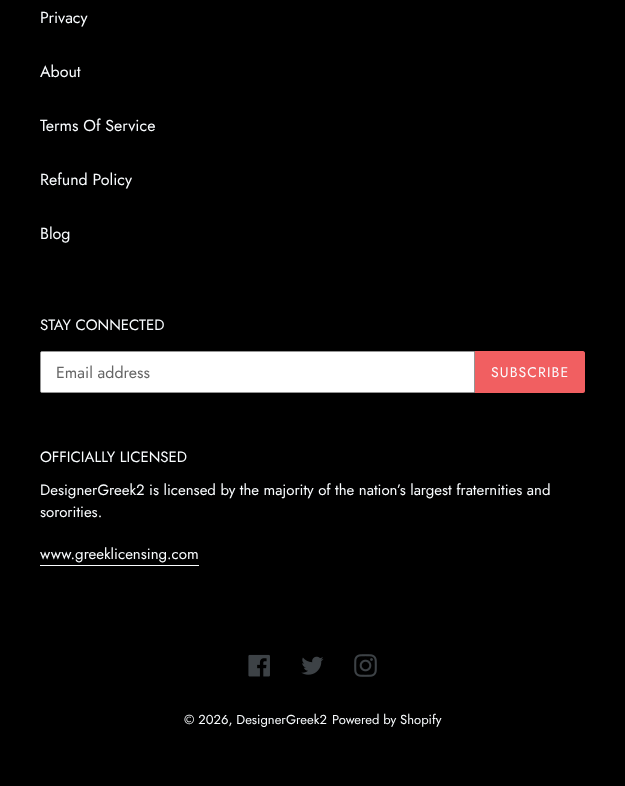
<svg xmlns="http://www.w3.org/2000/svg" width="625" height="786" viewBox="0 0 625 786">
  <rect width="100%" height="100%" fill="#000000"/>
  <text x="40" y="23" font-family="Jost" font-size="16" fill="#fafdff">Privacy</text>
  <text x="40" y="77" font-family="Jost" font-size="16" fill="#fafdff">About</text>
  <text x="40" y="131" font-family="Jost" font-size="16" fill="#fafdff">Terms Of Service</text>
  <text x="40" y="185" font-family="Jost" font-size="16" fill="#fafdff">Refund Policy</text>
  <text x="40" y="239" font-family="Jost" font-size="16" fill="#fafdff">Blog</text>
  <text x="40" y="330" font-family="Jost" font-size="15" fill="#fafdff">STAY CONNECTED</text>
  <path d="M42 351.5H474.5V392.5H42C41 392.5 40.5 392 40.5 391V353C40.5 352 41 351.5 42 351.5Z" fill="#ffffff" stroke="#949494"/>
  <text x="56" y="378" font-family="Jost" font-size="16" fill="#666666">Email address</text>
  <path d="M475 351H583C584 351 585 352 585 353V391C585 392 584 393 583 393H475Z" fill="#f15f61"/>
  <text x="491" y="377" font-family="Jost" font-size="14" letter-spacing="1.1" fill="#fafdff">SUBSCRIBE</text>
  <text x="40" y="462" font-family="Jost" font-size="15" fill="#fafdff">OFFICIALLY LICENSED</text>
  <text x="40" y="495" font-family="Jost" font-size="15" fill="#fafdff">DesignerGreek2 is licensed by the majority of the nation’s largest fraternities and</text>
  <text x="40" y="517" font-family="Jost" font-size="15" fill="#fafdff">sororities.</text>
  <text x="40" y="559" font-family="Jost" font-size="15" fill="#fafdff">www.greeklicensing.com</text>
  <rect x="40" y="565" width="159" height="1" fill="#fafdff"/>
  <image x="248" y="654" width="22" height="23" href="img1.png"/>
  <image x="301" y="656" width="23" height="19" href="img2.png"/>
  <image x="354" y="654" width="23" height="23" href="img3.png"/>
  <text x="184" y="724" font-family="Jost" font-size="13" fill="#fafdff">© 2026, DesignerGreek2</text>
  <text x="332" y="724" font-family="Jost" font-size="13" fill="#fafdff">Powered by Shopify</text>
</svg>
